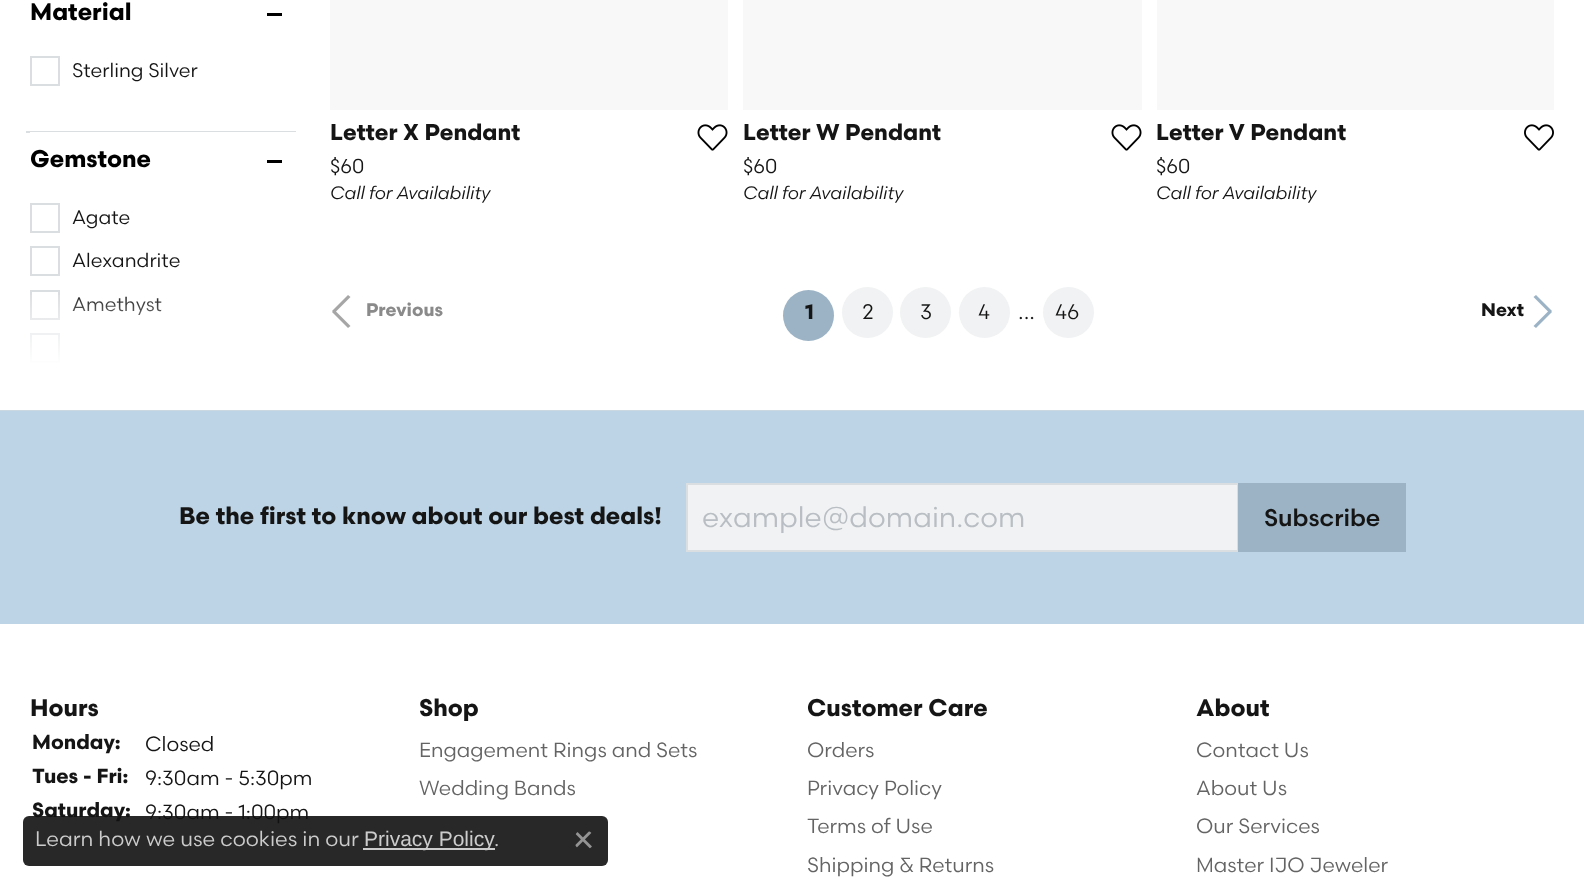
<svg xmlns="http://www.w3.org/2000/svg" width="1584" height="887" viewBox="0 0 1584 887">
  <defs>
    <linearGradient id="g1" gradientUnits="userSpaceOnUse" x1="178" y1="290" x2="178" y2="365"><stop offset="0" stop-color="#ffffff" stop-opacity="0"/><stop offset="1" stop-color="#ffffff"/></linearGradient>
  </defs>
  <rect width="100%" height="100%" fill="#ffffff"/>
  <rect x="26" y="131" width="270" height="2" fill="#dbdee0"/>
  <text x="30" y="20" font-family="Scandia" font-size="24" font-weight="bold" fill="#000000">Material</text>
  <rect x="267" y="13" width="15" height="3" fill="#000000"/>
  <rect x="31" y="57" width="28" height="28" fill="none" stroke="#dbdee0" stroke-width="2"/>
  <text x="72" y="77" font-family="Scandia" font-size="19.5" fill="#151515">Sterling Silver</text>
  <rect x="30" y="132" width="266" height="1" fill="#ffffff"/>
  <text x="30" y="167" font-family="Scandia" font-size="24" font-weight="bold" fill="#000000">Gemstone</text>
  <rect x="267" y="160" width="15" height="3" fill="#000000"/>
  <rect x="31" y="204" width="28" height="28" fill="none" stroke="#dbdee0" stroke-width="2"/>
  <text x="72" y="224" font-family="Scandia" font-size="19.5" fill="#151515">Agate</text>
  <rect x="31" y="247" width="28" height="28" fill="none" stroke="#dbdee0" stroke-width="2"/>
  <text x="72" y="267" font-family="Scandia" font-size="19.5" fill="#151515">Alexandrite</text>
  <rect x="31" y="291" width="28" height="28" fill="none" stroke="#dbdee0" stroke-width="2"/>
  <text x="72" y="311" font-family="Scandia" font-size="19.5" fill="#151515">Amethyst</text>
  <rect x="31" y="334" width="28" height="28" fill="none" stroke="#dbdee0" stroke-width="2"/>
  <rect x="30" y="295" width="132" height="68" fill="url(#g1)"/>
  <rect x="330" y="0" width="398" height="110" fill="#f8f8f8"/>
  <text x="330" y="140" font-family="Scandia" font-size="22.75" font-weight="bold" fill="#151515">Letter X Pendant</text>
  <image x="697" y="124" width="31" height="27" href="img1.png"/>
  <text x="330" y="173" font-family="Scandia" font-size="20" fill="#151515">$60</text>
  <text x="330" y="199" font-family="Scandia" font-size="18" font-style="italic" fill="#151515">Call for Availability</text>
  <rect x="743" y="0" width="399" height="110" fill="#f8f8f8"/>
  <text x="743" y="140" font-family="Scandia" font-size="22.75" font-weight="bold" fill="#151515">Letter W Pendant</text>
  <image x="1111" y="124" width="31" height="27" href="img1.png"/>
  <text x="743" y="173" font-family="Scandia" font-size="20" fill="#151515">$60</text>
  <text x="743" y="199" font-family="Scandia" font-size="18" font-style="italic" fill="#151515">Call for Availability</text>
  <rect x="1157" y="0" width="397" height="110" fill="#f8f8f8"/>
  <text x="1156" y="140" font-family="Scandia" font-size="22.75" font-weight="bold" fill="#151515">Letter V Pendant</text>
  <image x="1524" y="124" width="30" height="27" href="img2.png"/>
  <text x="1156" y="173" font-family="Scandia" font-size="20" fill="#151515">$60</text>
  <text x="1156" y="199" font-family="Scandia" font-size="18" font-style="italic" fill="#151515">Call for Availability</text>
  <path d="M332 311L348 295L350.5 297L334.5 313Z" fill="#a6a6a6"/>
  <text x="366" y="316" font-family="Scandia" font-size="18.25" font-weight="bold" fill="#8a8a8a">Previous</text>
  <path d="M334.5 310L350.5 326L348 328L332 312Z" fill="#a6a6a6"/>
  <text x="1481" y="316" font-family="Scandia" font-size="18.25" font-weight="bold" fill="#151515">Next</text>
  <path d="M1536 295L1552 311L1549.5 313L1533.5 297Z" fill="#9bb3c5"/>
  <path d="M1533.5 326L1549.5 310L1552 312L1536 328Z" fill="#9bb3c5"/>
  <circle cx="808.5" cy="315.5" r="25.5" fill="#9bb3c5"/>
  <text x="805" y="319" font-family="Scandia" font-size="21" font-weight="bold" fill="#151515">1</text>
  <circle cx="867.5" cy="312.5" r="25.5" fill="#f1f2f3"/>
  <text x="862" y="319" font-family="Scandia" font-size="21" fill="#151515">2</text>
  <circle cx="925.5" cy="312.5" r="25.5" fill="#f1f2f3"/>
  <text x="920" y="319" font-family="Scandia" font-size="21" fill="#151515">3</text>
  <circle cx="984.5" cy="312.5" r="25.5" fill="#f1f2f3"/>
  <text x="978" y="319" font-family="Scandia" font-size="21" fill="#151515">4</text>
  <text x="1018" y="319" font-family="Scandia" font-size="22.75" fill="#151515">...</text>
  <circle cx="1068.5" cy="312.5" r="25.5" fill="#f1f2f3"/>
  <text x="1055" y="319" font-family="Scandia" font-size="21" fill="#151515">46</text>
  <rect x="0" y="410" width="1584" height="1" fill="#cbd8e1"/>
  <rect x="0" y="411" width="1584" height="213" fill="#bcd4e6"/>
  <text x="179" y="524" font-family="Scandia" font-size="24" font-weight="bold" fill="#151515">Be the first to know about our best deals!</text>
  <rect x="687" y="484" width="551" height="67" fill="#f1f2f3" stroke="#dbdee0" stroke-width="2"/>
  <text x="702" y="527" font-family="Scandia" font-size="28.5" fill="#b8bec3">example@domain.com</text>
  <rect x="1238" y="483" width="168" height="69" fill="#9bb3c5"/>
  <text x="1264" y="526" font-family="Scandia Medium" font-size="24" font-weight="500" fill="#151515">Subscribe</text>
  <text x="30" y="716" font-family="Scandia" font-size="24" font-weight="bold" fill="#151515">Hours</text>
  <text x="32" y="749" font-family="Scandia" font-size="20.5" font-weight="bold" fill="#151515">Monday:</text>
  <text x="145" y="751" font-family="Scandia" font-size="20.5" fill="#151515">Closed</text>
  <text x="32" y="783" font-family="Scandia" font-size="20.5" font-weight="bold" fill="#151515">Tues - Fri:</text>
  <text x="145" y="785" font-family="Scandia" font-size="20.5" fill="#151515">9:30am - 5:30pm</text>
  <text x="32" y="817" font-family="Scandia" font-size="20.5" font-weight="bold" fill="#151515">Saturday:</text>
  <text x="145" y="819" font-family="Scandia" font-size="20.5" fill="#151515">9:30am - 1:00pm</text>
  <text x="419" y="716" font-family="Scandia" font-size="24" font-weight="bold" fill="#151515">Shop</text>
  <text x="419" y="757" font-family="Scandia" font-size="20.5" fill="#646464">Engagement Rings and Sets</text>
  <text x="419" y="795" font-family="Scandia" font-size="20.5" fill="#646464">Wedding Bands</text>
  <text x="807" y="716" font-family="Scandia" font-size="24" font-weight="bold" fill="#151515">Customer Care</text>
  <text x="807" y="757" font-family="Scandia" font-size="20.5" fill="#646464">Orders</text>
  <text x="807" y="795" font-family="Scandia" font-size="20.5" fill="#646464">Privacy Policy</text>
  <text x="807" y="833" font-family="Scandia" font-size="20.5" fill="#646464">Terms of Use</text>
  <text x="807" y="872" font-family="Scandia" font-size="20.5" fill="#646464">Shipping &amp; Returns</text>
  <text x="1196" y="716" font-family="Scandia" font-size="24" font-weight="bold" fill="#151515">About</text>
  <text x="1196" y="757" font-family="Scandia" font-size="20.5" fill="#646464">Contact Us</text>
  <text x="1196" y="795" font-family="Scandia" font-size="20.5" fill="#646464">About Us</text>
  <text x="1196" y="833" font-family="Scandia" font-size="20.5" fill="#646464">Our Services</text>
  <text x="1196" y="872" font-family="Scandia" font-size="20.5" fill="#646464">Master IJO Jeweler</text>
  <rect x="23" y="816" width="585" height="50" rx="6" fill="#111111" fill-opacity="0.9"/>
  <text x="35" y="846" font-family="Scandia" font-size="21" fill="#cccccc">Learn how we use cookies in our</text>
  <rect x="363" y="848" width="132" height="2" fill="#cccccc"/>
  <text x="364" y="846" font-family="Liberation Sans" font-size="21" fill="#cccccc">Privacy Policy</text>
  <text x="494" y="846" font-family="Scandia" font-size="21" fill="#cccccc">.</text>
  <image x="575" y="831" width="17" height="18" href="img3.png"/>
</svg>
